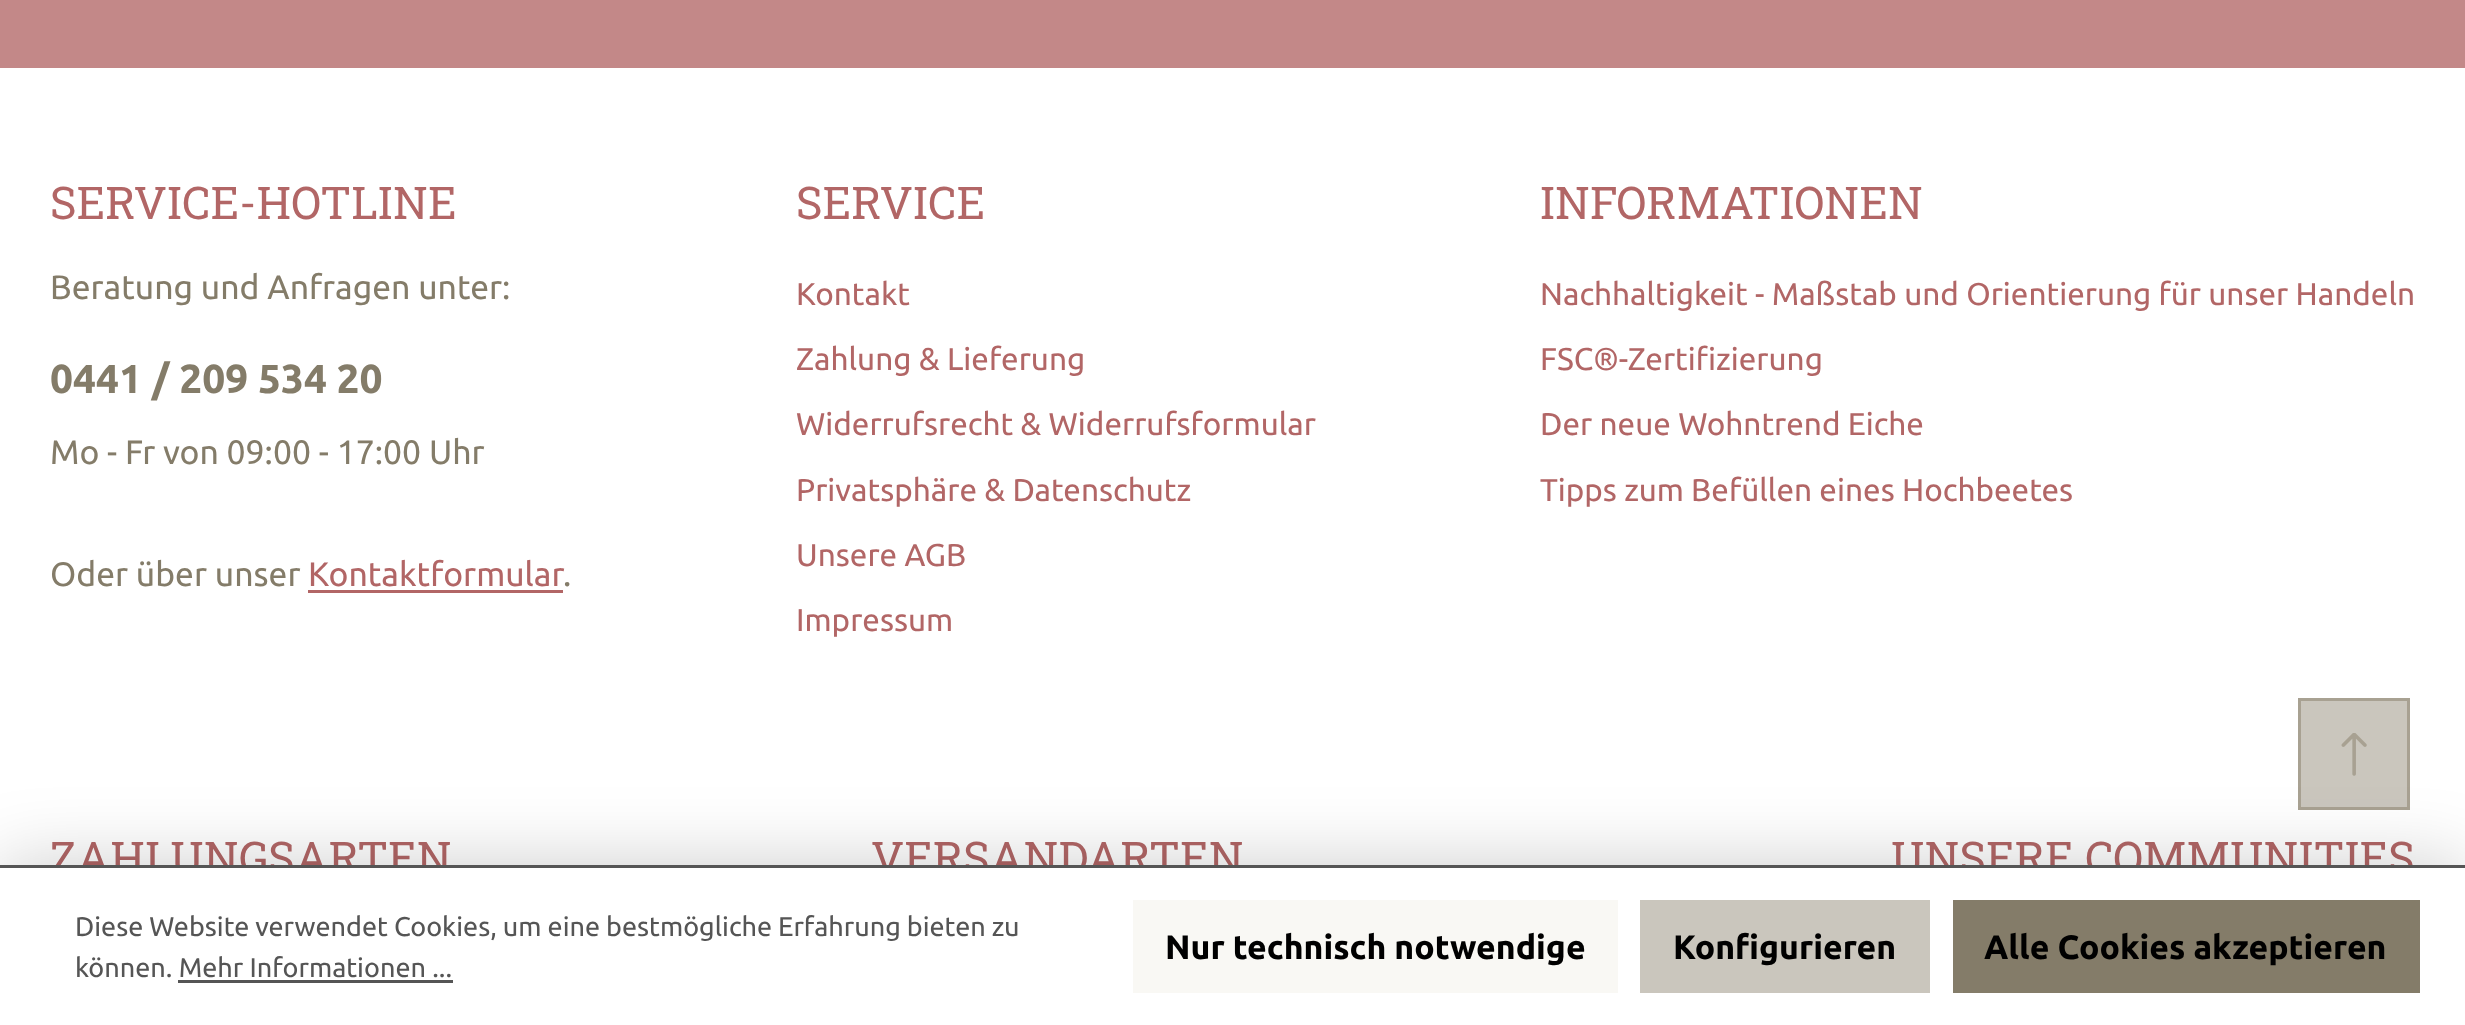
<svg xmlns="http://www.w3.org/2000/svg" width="2465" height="1025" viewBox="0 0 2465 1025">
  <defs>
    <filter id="blur1" x="-50%" y="-200%" width="200%" height="500%"><feGaussianBlur stdDeviation="37.5"/></filter>
  </defs>
  <rect width="100%" height="100%" fill="#c38888"/>
  <rect x="0" y="68" width="2465" height="797" fill="#ffffff"/>
  <text x="50" y="219" font-family="Roboto Slab" font-size="45" fill="#b26666">SERVICE-HOTLINE</text>
  <text x="50" y="299" font-family="Ubuntu" font-size="33.75" fill="#847c69">Beratung und Anfragen unter:</text>
  <text x="50" y="393" font-family="Ubuntu" font-size="40.5" font-weight="bold" fill="#847c69">0441 / 209 534 20</text>
  <text x="50" y="464" font-family="Ubuntu" font-size="33.75" fill="#847c69">Mo - Fr von 09:00 - 17:00 Uhr</text>
  <text x="50" y="586" font-family="Ubuntu" font-size="33.75" fill="#847c69">Oder über unser</text>
  <text x="308" y="586" font-family="Ubuntu" font-size="33.75" fill="#b26666">Kontaktformular</text>
  <rect x="308" y="590" width="255" height="3" fill="#b26666"/>
  <text x="563" y="586" font-family="Ubuntu" font-size="33.75" fill="#847c69">.</text>
  <text x="796" y="219" font-family="Roboto Slab" font-size="45" fill="#b26666">SERVICE</text>
  <text x="796" y="305" font-family="Ubuntu" font-size="31.5" fill="#b26666">Kontakt</text>
  <text x="796" y="370" font-family="Ubuntu" font-size="31.5" fill="#b26666">Zahlung &amp; Lieferung</text>
  <text x="796" y="435" font-family="Ubuntu" font-size="31.5" fill="#b26666">Widerrufsrecht &amp; Widerrufsformular</text>
  <text x="796" y="501" font-family="Ubuntu" font-size="31.5" fill="#b26666">Privatsphäre &amp; Datenschutz</text>
  <text x="796" y="566" font-family="Ubuntu" font-size="31.5" fill="#b26666">Unsere AGB</text>
  <text x="796" y="631" font-family="Ubuntu" font-size="31.5" fill="#b26666">Impressum</text>
  <text x="1540" y="219" font-family="Roboto Slab" font-size="45" fill="#b26666">INFORMATIONEN</text>
  <text x="1540" y="305" font-family="Ubuntu" font-size="31.5" fill="#b26666">Nachhaltigkeit - Maßstab und Orientierung für unser Handeln</text>
  <text x="1540" y="370" font-family="Ubuntu" font-size="31.5" fill="#b26666">FSC®-Zertifizierung</text>
  <text x="1540" y="435" font-family="Ubuntu" font-size="31.5" fill="#b26666">Der neue Wohntrend Eiche</text>
  <text x="1540" y="501" font-family="Ubuntu" font-size="31.5" fill="#b26666">Tipps zum Befüllen eines Hochbeetes</text>
  <text x="50" y="874" font-family="Roboto Slab" font-size="45" fill="#b26666">ZAHLUNGSARTEN</text>
  <text x="871" y="874" font-family="Roboto Slab" font-size="45" fill="#b26666">VERSANDARTEN</text>
  <text x="1891" y="874" font-family="Roboto Slab" font-size="45" fill="#b26666">UNSERE COMMUNITIES</text>
  <rect x="2299.5" y="699.5" width="109" height="109" fill="#cac6bd" stroke="#a8a192" stroke-width="3"/>
  <image x="2341" y="733" width="26" height="43" href="img1.png"/>
  <rect x="0" y="865" width="2465" height="160" fill="#000000" fill-opacity="0.2" filter="url(#blur1)"/>
  <rect x="0" y="868" width="2465" height="157" fill="#ffffff"/>
  <rect x="0" y="865" width="2465" height="3" fill="#555555"/>
  <text x="75" y="936" word-spacing="-0.25" font-family="Ubuntu" font-size="27" fill="#555555">Diese Website verwendet Cookies, um eine bestmögliche Erfahrung bieten zu</text>
  <text x="75" y="977" font-family="Ubuntu" font-size="27" fill="#555555">können. Mehr Informationen ...</text>
  <rect x="178" y="980" width="275" height="3" fill="#555555"/>
  <rect x="1133" y="900" width="485" height="93" fill="#f9f8f4"/>
  <text x="1165" y="959" font-family="Ubuntu" font-size="33.75" font-weight="bold" fill="#000000">Nur technisch notwendige</text>
  <rect x="1640" y="900" width="290" height="93" fill="#cac6bd"/>
  <text x="1673" y="959" font-family="Ubuntu" font-size="33.75" font-weight="bold" fill="#000000">Konfigurieren</text>
  <rect x="1953" y="900" width="467" height="93" fill="#847c69"/>
  <text x="1984" y="959" font-family="Ubuntu" font-size="33.75" font-weight="bold" fill="#000000">Alle Cookies akzeptieren</text>
</svg>
